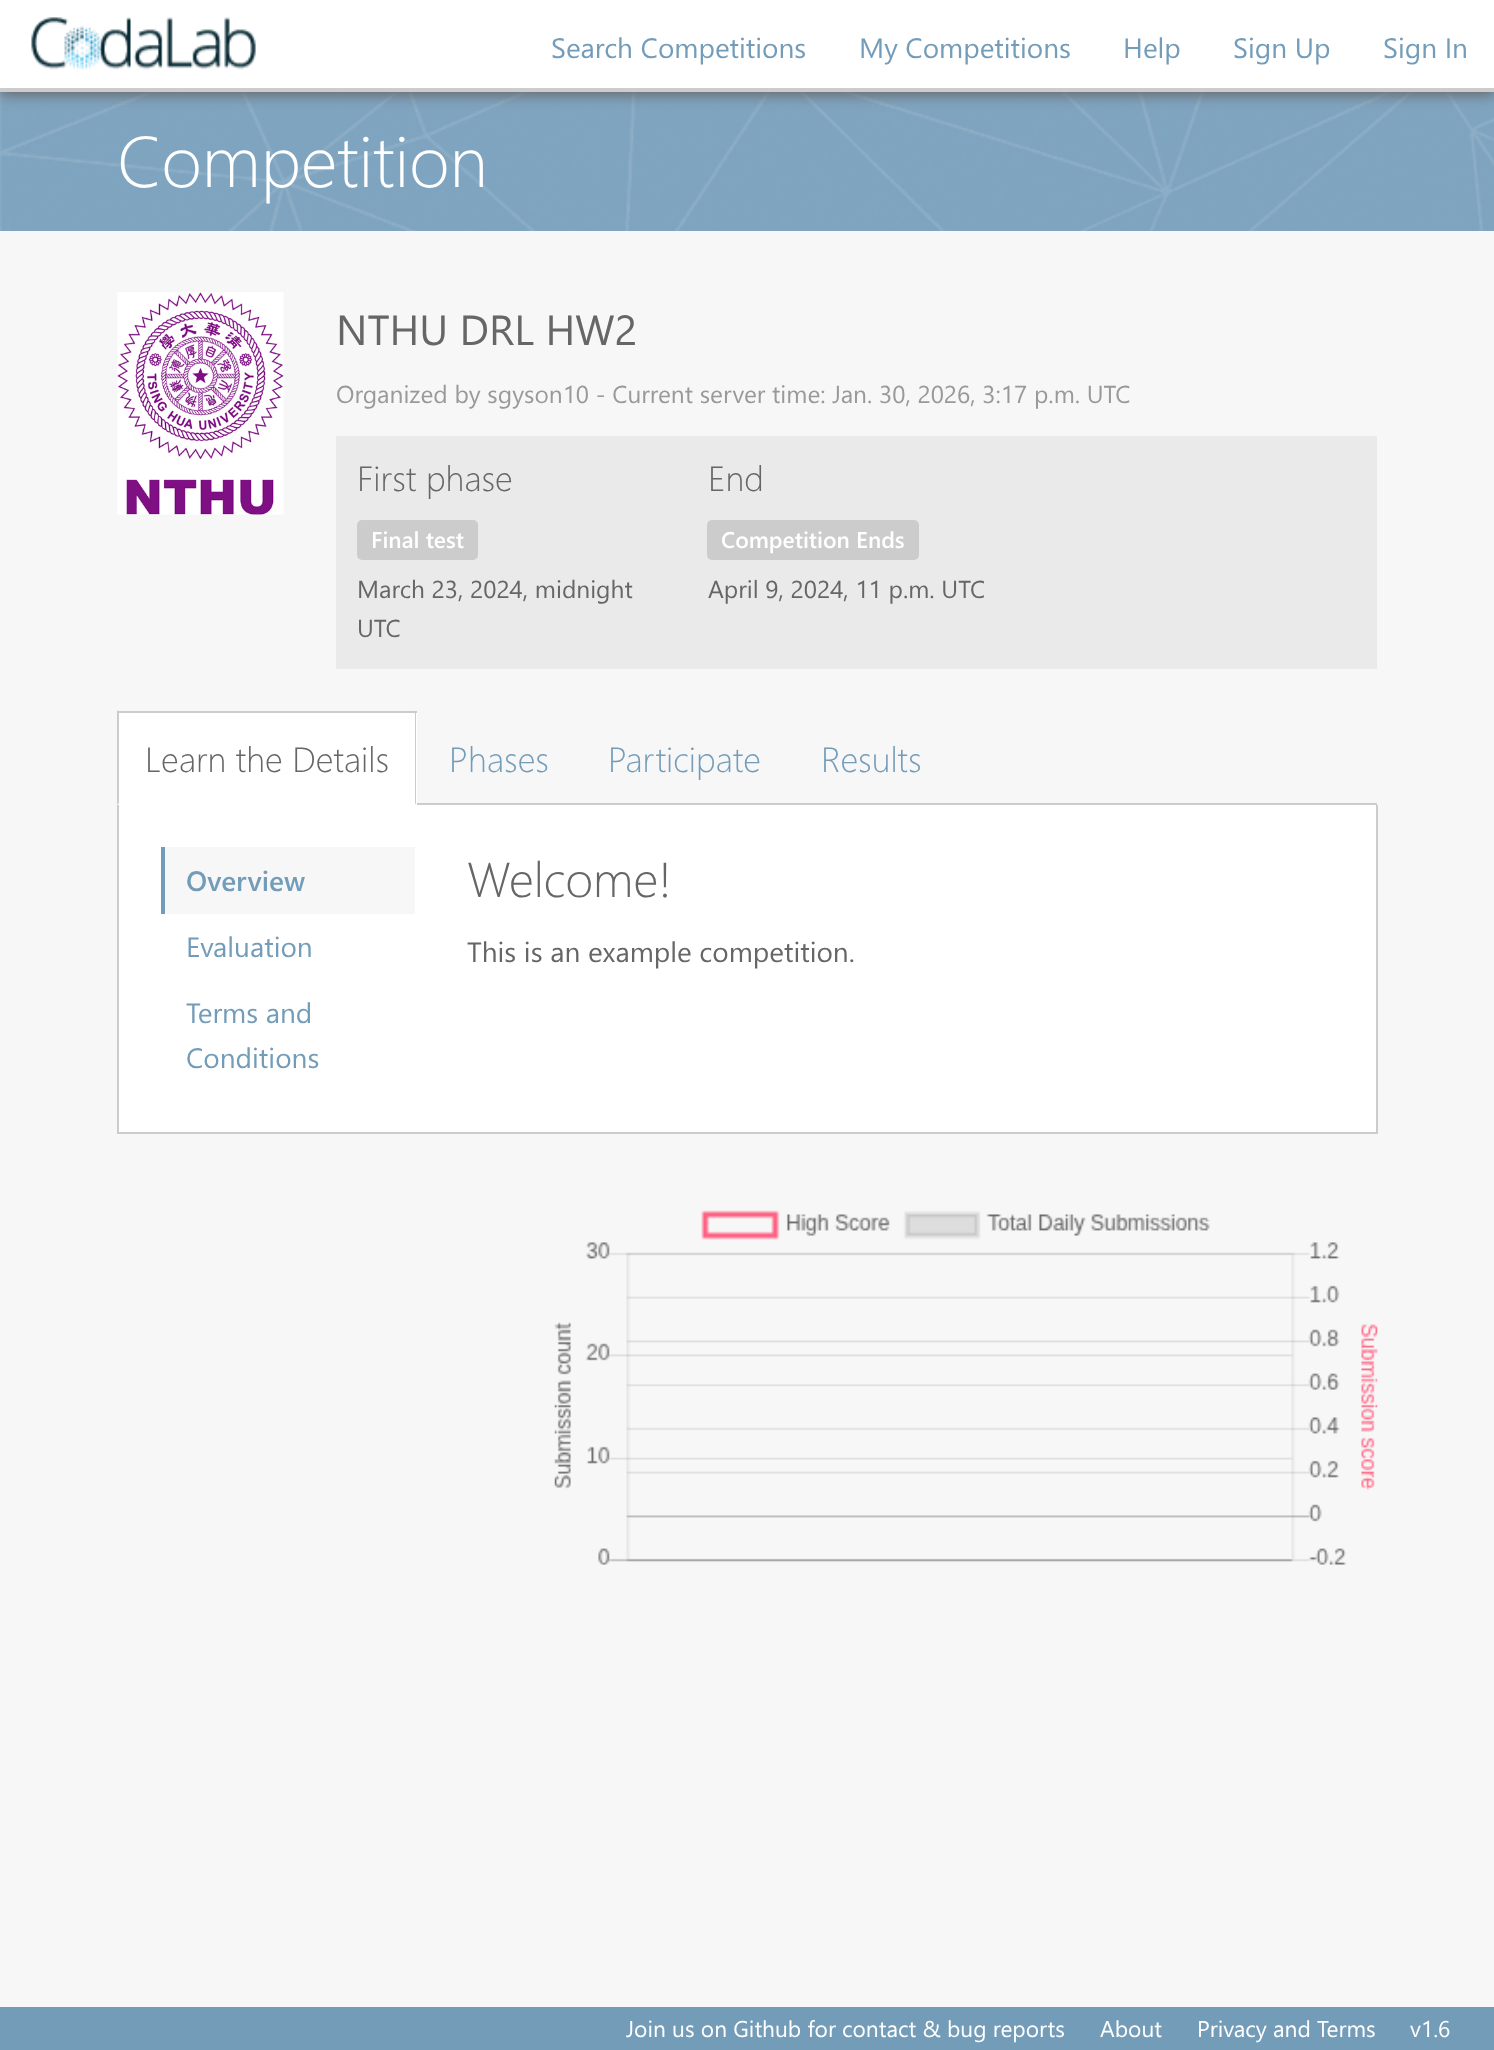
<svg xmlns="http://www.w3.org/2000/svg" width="1494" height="2050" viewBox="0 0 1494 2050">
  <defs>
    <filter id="blur1" x="-50%" y="-200%" width="200%" height="500%"><feGaussianBlur stdDeviation="7"/></filter>
  </defs>
  <rect width="100%" height="100%" fill="#f7f7f7"/>
  <image x="0" y="92" width="1494" height="139" href="img2.png"/>
  <rect x="0" y="4" width="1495" height="91" fill="#666666" filter="url(#blur1)"/>
  <rect x="0" y="0" width="1494" height="88" fill="#ffffff"/>
  <rect x="0" y="88" width="1494" height="4" fill="#cccccc"/>
  <image x="31" y="17" width="225" height="53" href="img1.png"/>
  <text x="551" y="58" font-family="Segoe UI" font-size="28" fill="#739cb9">Search Competitions</text>
  <text x="859" y="58" font-family="Segoe UI" font-size="28" fill="#739cb9">My Competitions</text>
  <text x="1123" y="58" font-family="Segoe UI" font-size="28" fill="#739cb9">Help</text>
  <text x="1233" y="58" font-family="Segoe UI" font-size="28" fill="#739cb9">Sign Up</text>
  <text x="1383" y="58" font-family="Segoe UI" font-size="28" fill="#739cb9">Sign In</text>
  <text x="117" y="187" font-family="Segoe UI" font-size="71.75" font-weight="300" fill="#ffffff">Competition</text>
  <image x="117" y="292" width="167" height="223" href="img3.png"/>
  <text x="336" y="345" font-family="Segoe UI" font-size="42" fill="#666666">NTHU DRL HW2</text>
  <text x="336" y="403" font-family="Segoe UI" font-size="24.5" fill="#999999">Organized by sgyson10 - Current server time: Jan. 30, 2026, 3:17 p.m. UTC</text>
  <rect x="336" y="436" width="1041" height="233" fill="#eaeaea"/>
  <text x="357" y="491" font-family="Segoe UI" font-size="35" font-weight="300" fill="#666666">First phase</text>
  <rect x="357" y="520" width="121" height="40" rx="5" fill="#cccccc"/>
  <text x="371" y="548" font-family="Segoe UI" font-size="22.75" font-weight="600" fill="#ffffff">Final test</text>
  <text x="357" y="598" font-family="Segoe UI" font-size="24.5" fill="#666666">March 23, 2024, midnight</text>
  <text x="357" y="637" font-family="Segoe UI" font-size="24.5" fill="#666666">UTC</text>
  <text x="708" y="491" font-family="Segoe UI" font-size="35" font-weight="300" fill="#666666">End</text>
  <rect x="707" y="520" width="212" height="40" rx="5" fill="#cccccc"/>
  <text x="721" y="548" font-family="Segoe UI" font-size="22.75" font-weight="600" fill="#ffffff">Competition Ends</text>
  <text x="708" y="598" font-family="Segoe UI" font-size="24.5" fill="#666666">April 9, 2024, 11 p.m. UTC</text>
  <rect x="417" y="803" width="960" height="2" fill="#cccccc"/>
  <rect x="117" y="713" width="300" height="92" fill="#ffffff"/>
  <rect x="117" y="711" width="300" height="2" fill="#cccccc"/>
  <path d="M416 710V805L415 803V712Z" fill="#cccccc"/>
  <path d="M117 805V710L119 712V803Z" fill="#cccccc"/>
  <text x="145" y="772" font-family="Segoe UI" font-size="35" font-weight="300" fill="#666666">Learn the Details</text>
  <text x="449" y="772" font-family="Segoe UI" font-size="35" font-weight="300" fill="#739cb9">Phases</text>
  <text x="608" y="772" font-family="Segoe UI" font-size="35" font-weight="300" fill="#739cb9">Participate</text>
  <text x="821" y="772" font-family="Segoe UI" font-size="35" font-weight="300" fill="#739cb9">Results</text>
  <rect x="119" y="805" width="1257" height="327" fill="#ffffff"/>
  <rect x="1376" y="805" width="2" height="329" fill="#cccccc"/>
  <rect x="117" y="1132" width="1260" height="2" fill="#cccccc"/>
  <rect x="117" y="805" width="2" height="329" fill="#cccccc"/>
  <rect x="165" y="847" width="250" height="67" fill="#f7f7f7"/>
  <rect x="161" y="847" width="4" height="67" fill="#739cb9"/>
  <text x="186" y="891" font-family="Segoe UI" font-size="28" font-weight="600" fill="#739cb9">Overview</text>
  <text x="186" y="957" font-family="Segoe UI" font-size="28" fill="#739cb9">Evaluation</text>
  <text x="186" y="1023" font-family="Segoe UI" font-size="28" fill="#739cb9">Terms and</text>
  <text x="186" y="1068" font-family="Segoe UI" font-size="28" fill="#739cb9">Conditions</text>
  <text x="467" y="897" font-family="Segoe UI" font-size="49" font-weight="300" fill="#666666">Welcome!</text>
  <text x="467" y="962" font-family="Segoe UI" font-size="28" fill="#666666">This is an example competition.</text>
  <image x="554" y="1210" width="824" height="355" href="img4.png"/>
  <rect x="0" y="2007" width="1494" height="43" fill="#739cb9"/>
  <text x="626" y="2037" font-family="Segoe UI" font-size="22.75" fill="#ffffff">Join us on Github for contact &amp; bug reports</text>
  <text x="1100" y="2037" font-family="Segoe UI" font-size="22.75" fill="#ffffff">About</text>
  <text x="1197" y="2037" font-family="Segoe UI" font-size="22.75" fill="#ffffff">Privacy and Terms</text>
  <text x="1410" y="2037" font-family="Segoe UI" font-size="22.75" fill="#ffffff">v1.6</text>
</svg>
